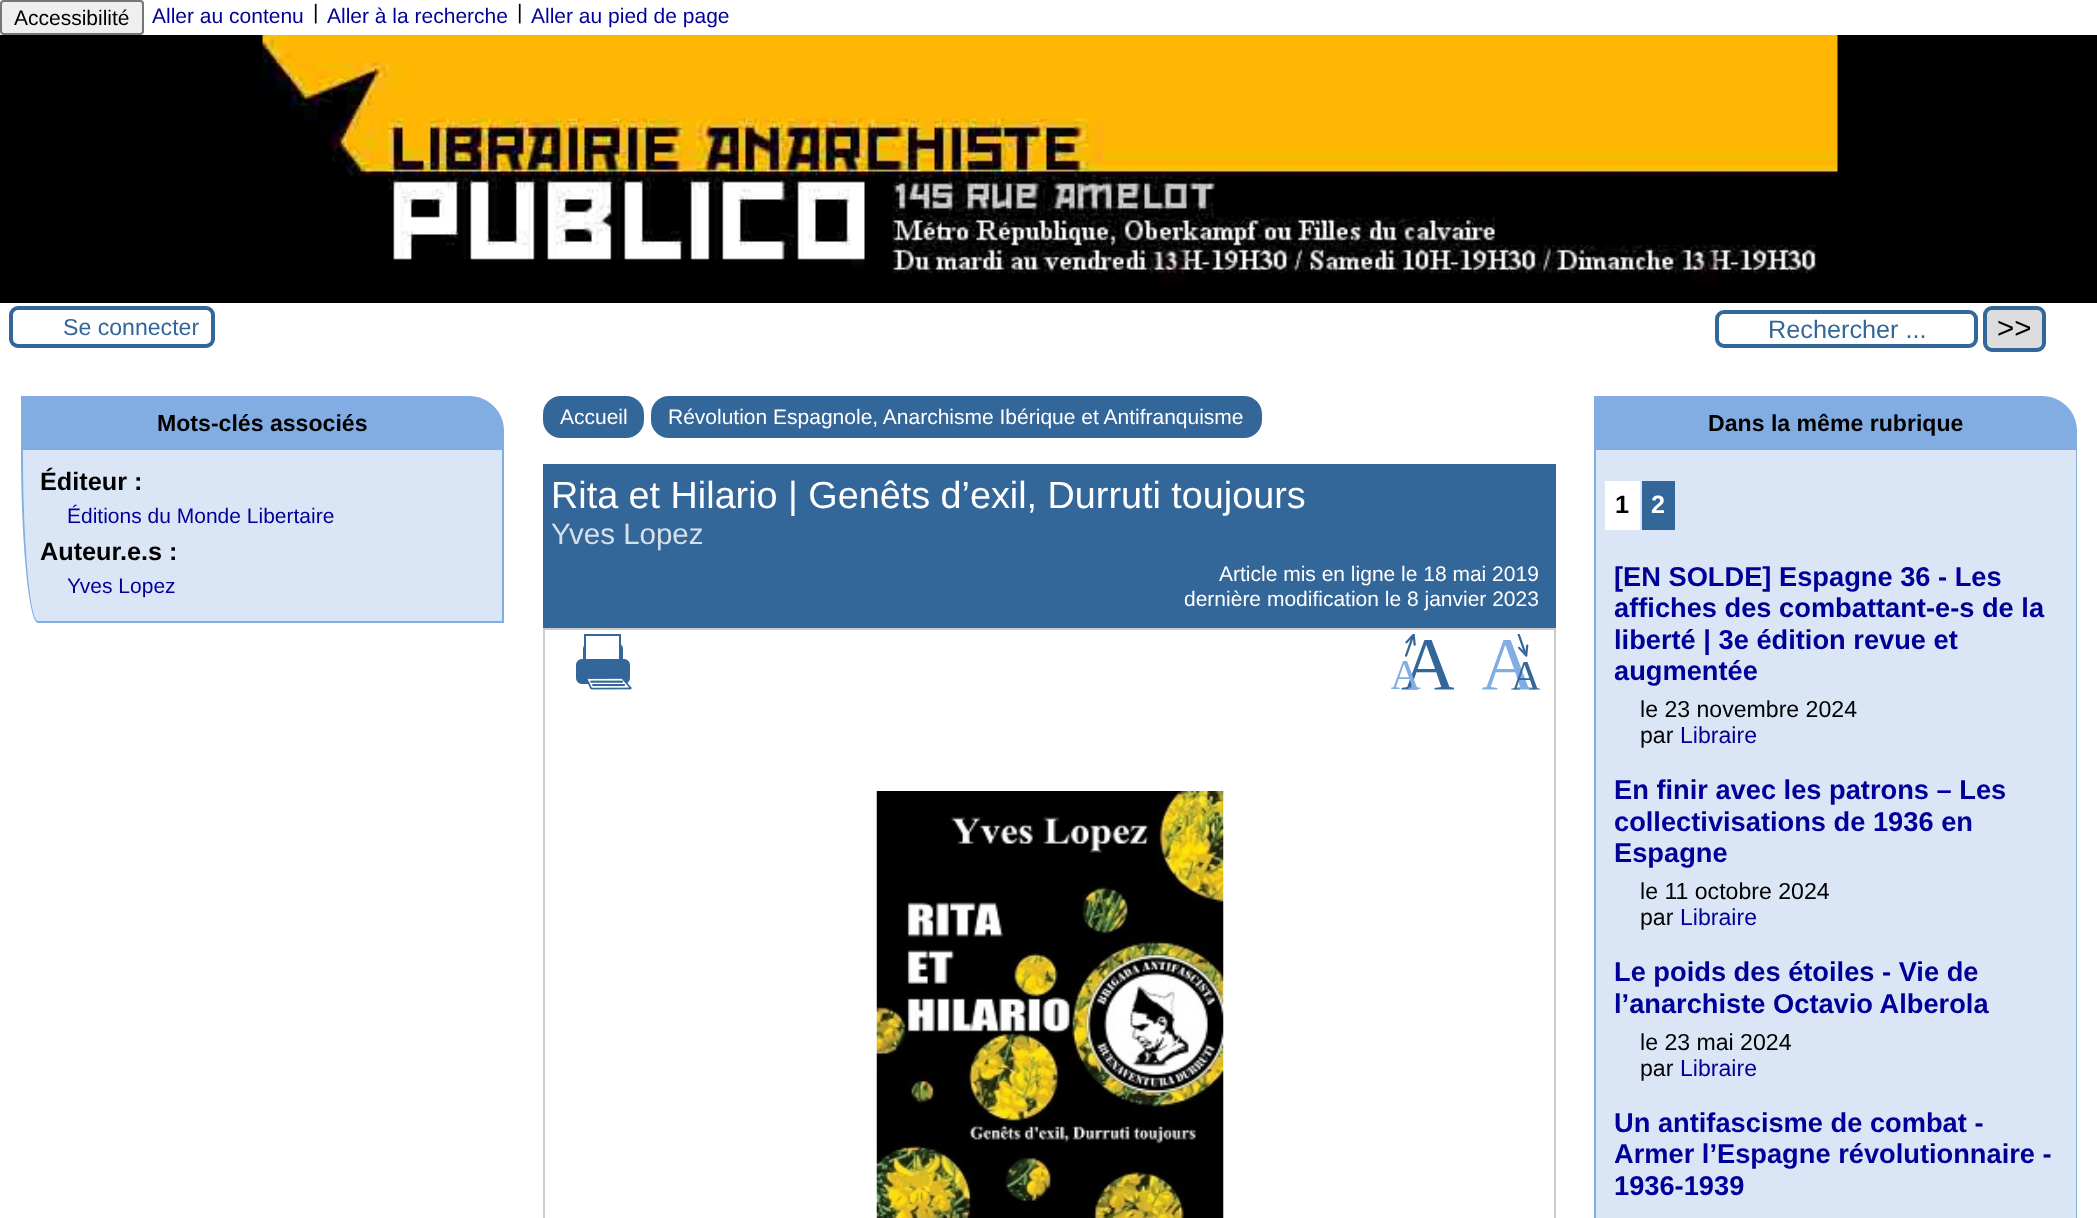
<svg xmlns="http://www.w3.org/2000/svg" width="2097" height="1218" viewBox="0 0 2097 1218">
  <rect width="100%" height="100%" fill="#ffffff"/>
  <rect x="0" y="35" width="2097" height="268" fill="#000000"/>
  <rect x="1" y="1" width="142" height="33" rx="3" fill="#efefef" stroke="#767676" stroke-width="2"/>
  <text x="14" y="25" font-family="Liberation Sans" font-size="21" fill="#000000">Accessibilité</text>
  <text x="152" y="23" font-family="Liberation Sans" font-size="21" fill="#000099">Aller au contenu</text>
  <text x="313" y="19" font-family="Liberation Sans" font-size="21" fill="#000000">|</text>
  <text x="327" y="23" font-family="Liberation Sans" font-size="21" fill="#000099">Aller à la recherche</text>
  <text x="517" y="19" font-family="Liberation Sans" font-size="21" fill="#000000">|</text>
  <text x="531" y="23" font-family="Liberation Sans" font-size="21" fill="#000099">Aller au pied de page</text>
  <image x="262" y="35" width="1576" height="250" href="img1.png"/>
  <rect x="11" y="308" width="202" height="38" rx="7" fill="none" stroke="#336699" stroke-width="4"/>
  <text x="63" y="335" font-family="Liberation Sans" font-size="23.1" fill="#336699">Se connecter</text>
  <rect x="1717" y="312" width="259" height="34" rx="7" fill="none" stroke="#336699" stroke-width="4"/>
  <text x="1768" y="338" font-family="Liberation Sans" font-size="25.25" fill="#336699">Rechercher ...</text>
  <rect x="1985" y="308" width="59" height="42" rx="7" fill="#dddddd" stroke="#336699" stroke-width="4"/>
  <text x="1997" y="338" font-family="Liberation Sans" font-size="29.5" fill="#000000">&gt;&gt;</text>
  <path d="M21 396H469C488.5 396 504 411.5 504 431V450H21Z" fill="#82ade2"/>
  <text x="157" y="431" font-family="Liberation Sans" font-size="23.1" font-weight="bold" fill="#000000">Mots-clés associés</text>
  <path d="M23 450H502V621H38C30 621 23 544 23 450Z" fill="#dae6f6"/>
  <path d="M21 450H504V623H38C29 623 21 545 21 450ZM23 450H502V621H38C30 621 23 544 23 450Z" fill="#82ade2" fill-rule="evenodd"/>
  <text x="40" y="490" font-family="Liberation Sans" font-size="25.25" font-weight="bold" fill="#000000">Éditeur :</text>
  <text x="67" y="523" font-family="Liberation Sans" font-size="21" fill="#000099">Éditions du Monde Libertaire</text>
  <text x="40" y="560" font-family="Liberation Sans" font-size="25.25" font-weight="bold" fill="#000000">Auteur.e.s :</text>
  <text x="67" y="593" font-family="Liberation Sans" font-size="21" fill="#000099">Yves Lopez</text>
  <rect x="543" y="396" width="101" height="42" rx="18" fill="#336699"/>
  <text x="560" y="424" font-family="Liberation Sans" font-size="21" fill="#ffffff">Accueil</text>
  <rect x="651" y="396" width="611" height="42" rx="18" fill="#336699"/>
  <text x="668" y="424" font-family="Liberation Sans" font-size="21" fill="#ffffff">Révolution Espagnole, Anarchisme Ibérique et Antifranquisme</text>
  <rect x="543" y="464" width="1013" height="164" fill="#336699"/>
  <text x="551" y="508" font-family="Liberation Sans" font-size="37.75" fill="#ffffff">Rita et Hilario | Genêts d’exil, Durruti toujours</text>
  <text x="551" y="544" font-family="Liberation Sans" font-size="29.5" fill="#d6e0eb">Yves Lopez</text>
  <text x="1219" y="581" font-family="Liberation Sans" font-size="21" fill="#ffffff">Article mis en ligne le 18 mai 2019</text>
  <text x="1184" y="606" font-family="Liberation Sans" font-size="21" fill="#ffffff">dernière modification le 8 janvier 2023</text>
  <rect x="544" y="629" width="1011" height="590" fill="none" stroke="#cccccc" stroke-width="2"/>
  <image x="576" y="634" width="56" height="56" href="img2.png"/>
  <image x="1391" y="634" width="63" height="56" href="img3.png"/>
  <image x="1482" y="634" width="58" height="56" href="img4.png"/>
  <image x="876" y="791" width="348" height="427" href="img5.png"/>
  <path d="M1594 396H2042C2061.5 396 2077 411.5 2077 431V450H1594Z" fill="#82ade2"/>
  <text x="1708" y="431" font-family="Liberation Sans" font-size="23.1" font-weight="bold" fill="#000000">Dans la même rubrique</text>
  <path d="M1596 450H2076V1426H1612C1603 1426 1596 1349 1596 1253Z" fill="#dae6f6"/>
  <path d="M1594 450H2077V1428H1612C1602 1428 1594 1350 1594 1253ZM1596 450H2076V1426H1612C1603 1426 1596 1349 1596 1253Z" fill="#82ade2" fill-rule="evenodd"/>
  <rect x="1605" y="481" width="35" height="49" fill="#ffffff"/>
  <text x="1615" y="513" font-family="Liberation Sans" font-size="25.25" font-weight="bold" fill="#000000">1</text>
  <rect x="1642" y="481" width="33" height="49" fill="#336699"/>
  <text x="1651" y="513" font-family="Liberation Sans" font-size="25.25" font-weight="bold" fill="#ffffff">2</text>
  <text x="1614" y="586" font-family="Liberation Sans" font-size="27.25" font-weight="bold" fill="#000099">[EN SOLDE] Espagne 36 - Les</text>
  <text x="1614" y="617" font-family="Liberation Sans" font-size="27.25" font-weight="bold" fill="#000099">affiches des combattant-e-s de la</text>
  <text x="1614" y="649" font-family="Liberation Sans" font-size="27.25" font-weight="bold" fill="#000099">liberté | 3e édition revue et</text>
  <text x="1614" y="680" font-family="Liberation Sans" font-size="27.25" font-weight="bold" fill="#000099">augmentée</text>
  <text x="1640" y="717" font-family="Liberation Sans" font-size="23.1" fill="#000000">le 23 novembre 2024</text>
  <text x="1640" y="743" font-family="Liberation Sans" font-size="23.1" fill="#000000">par</text>
  <text x="1680" y="743" font-family="Liberation Sans" font-size="23.1" fill="#000099">Libraire</text>
  <text x="1614" y="799" font-family="Liberation Sans" font-size="27.25" font-weight="bold" fill="#000099">En finir avec les patrons – Les</text>
  <text x="1614" y="831" font-family="Liberation Sans" font-size="27.25" font-weight="bold" fill="#000099">collectivisations de 1936 en</text>
  <text x="1614" y="862" font-family="Liberation Sans" font-size="27.25" font-weight="bold" fill="#000099">Espagne</text>
  <text x="1640" y="899" font-family="Liberation Sans" font-size="23.1" fill="#000000">le 11 octobre 2024</text>
  <text x="1640" y="925" font-family="Liberation Sans" font-size="23.1" fill="#000000">par</text>
  <text x="1680" y="925" font-family="Liberation Sans" font-size="23.1" fill="#000099">Libraire</text>
  <text x="1614" y="981" font-family="Liberation Sans" font-size="27.25" font-weight="bold" fill="#000099">Le poids des étoiles - Vie de</text>
  <text x="1614" y="1013" font-family="Liberation Sans" font-size="27.25" font-weight="bold" fill="#000099">l’anarchiste Octavio Alberola</text>
  <text x="1640" y="1050" font-family="Liberation Sans" font-size="23.1" fill="#000000">le 23 mai 2024</text>
  <text x="1640" y="1076" font-family="Liberation Sans" font-size="23.1" fill="#000000">par</text>
  <text x="1680" y="1076" font-family="Liberation Sans" font-size="23.1" fill="#000099">Libraire</text>
  <text x="1614" y="1132" font-family="Liberation Sans" font-size="27.25" font-weight="bold" fill="#000099">Un antifascisme de combat -</text>
  <text x="1614" y="1163" font-family="Liberation Sans" font-size="27.25" font-weight="bold" fill="#000099">Armer l’Espagne révolutionnaire -</text>
  <text x="1614" y="1195" font-family="Liberation Sans" font-size="27.25" font-weight="bold" fill="#000099">1936-1939</text>
</svg>
